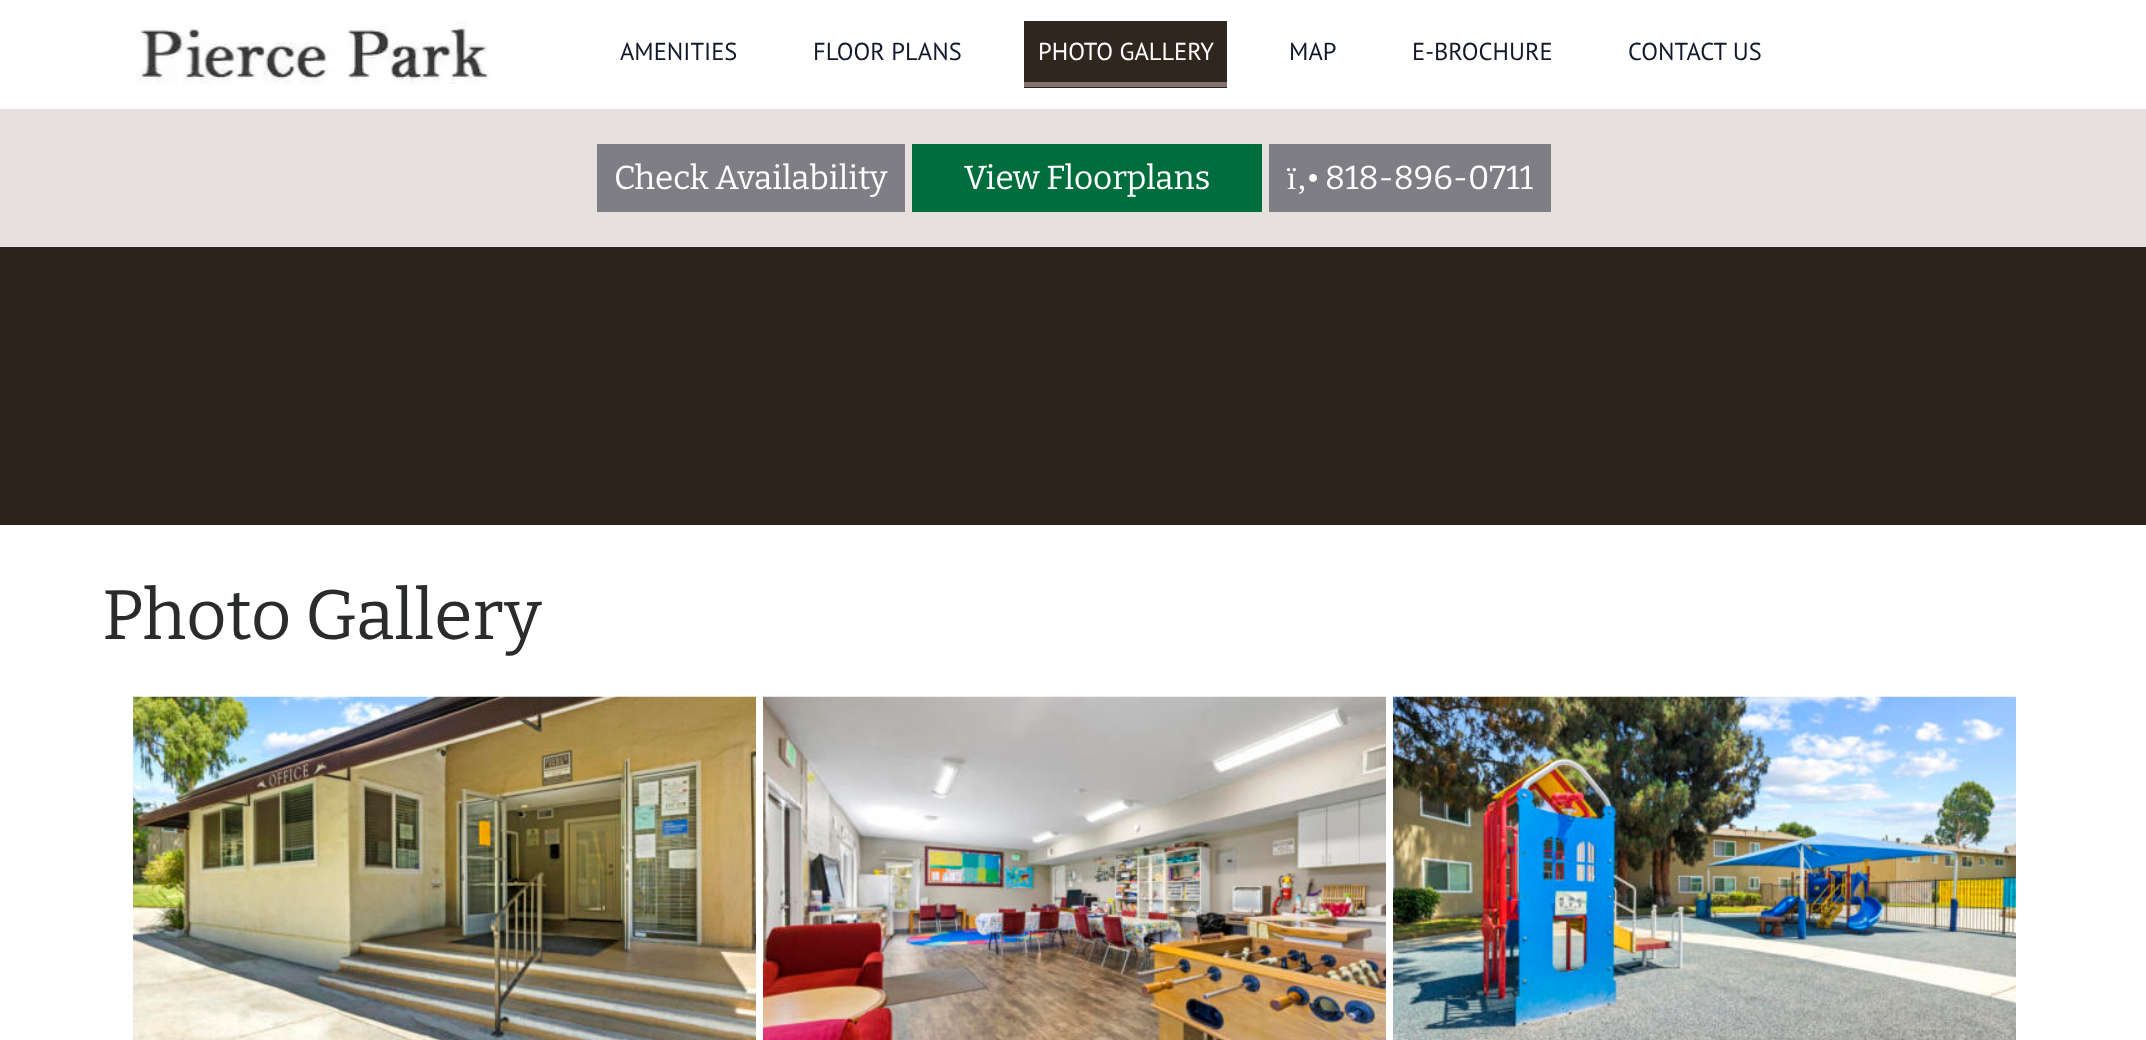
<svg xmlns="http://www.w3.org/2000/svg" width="2146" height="1040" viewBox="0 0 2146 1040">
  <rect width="100%" height="100%" fill="#ffffff"/>
  <image x="136" y="21" width="353" height="64" href="img1.png"/>
  <text x="620" y="60" font-family="PT Sans" font-size="24.5" fill="#14182a">AMENITIES</text>
  <text x="813" y="60" font-family="PT Sans" font-size="24.5" fill="#14182a">FLOOR PLANS</text>
  <rect x="1024" y="21" width="203" height="67" fill="#2f261d"/>
  <rect x="1024" y="82" width="203" height="5" fill="#84736c"/>
  <text x="1038" y="60" font-family="PT Sans" font-size="24.5" fill="#ffffff">PHOTO GALLERY</text>
  <text x="1289" y="60" font-family="PT Sans" font-size="24.5" fill="#14182a">MAP</text>
  <text x="1412" y="60" font-family="PT Sans" font-size="24.5" fill="#14182a">E-BROCHURE</text>
  <text x="1628" y="60" font-family="PT Sans" font-size="24.5" fill="#14182a">CONTACT US</text>
  <rect x="0" y="109" width="2146" height="138" fill="#e6e1de"/>
  <rect x="597" y="144" width="308" height="68" fill="#7f7e85"/>
  <text x="614" y="189" font-family="Bitter" font-size="33.25" font-weight="100" fill="#ffffff">Check Availability</text>
  <rect x="912" y="144" width="350" height="68" fill="#006e3c"/>
  <text x="964" y="189" font-family="Bitter" font-size="33.25" font-weight="100" fill="#ffffff">View Floorplans</text>
  <rect x="1269" y="144" width="282" height="68" fill="#7f7e85"/>
  <text x="1287" y="189" font-family="Liberation Serif" font-size="33.25" fill="#ffffff">ï‚•</text>
  <text x="1325" y="189" font-family="Bitter" font-size="33.25" font-weight="100" fill="#ffffff">818-896-0711</text>
  <rect x="0" y="247" width="2146" height="278" fill="#2c231c"/>
  <text x="102" y="639" font-family="Bitter" font-size="70" font-weight="100" fill="#292b2c">Photo Gallery</text>
  <image x="133" y="696" width="623" height="344" href="img2.png"/>
  <image x="763" y="696" width="623" height="344" href="img3.png"/>
  <image x="1393" y="696" width="623" height="344" href="img4.png"/>
</svg>
